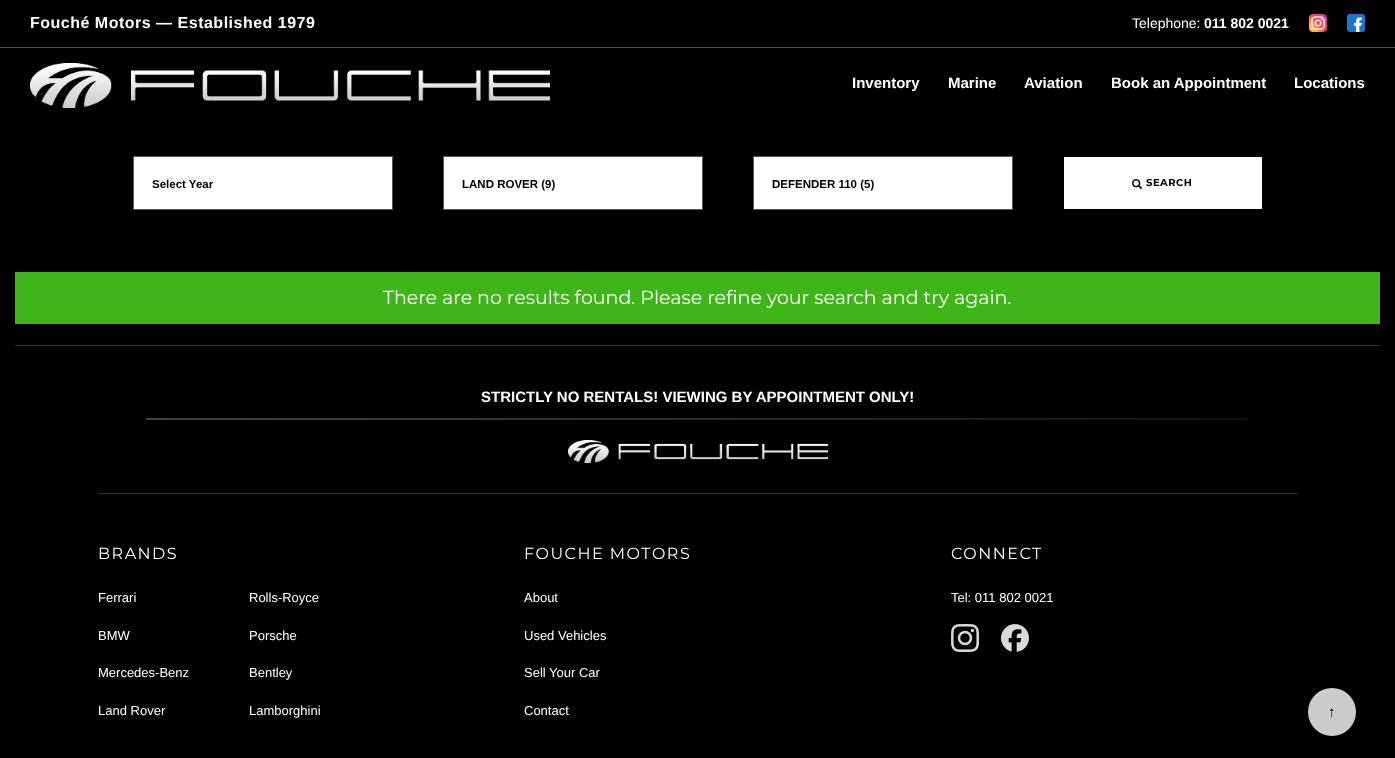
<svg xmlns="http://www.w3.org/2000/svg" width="1395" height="758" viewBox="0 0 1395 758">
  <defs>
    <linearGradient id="g1" gradientUnits="userSpaceOnUse" x1="146" y1="419" x2="1249" y2="419"><stop offset="0" stop-color="#444444"/><stop offset="1" stop-color="#111111"/></linearGradient>
  </defs>
  <rect width="100%" height="100%" fill="#000000"/>
  <text x="30" y="28" font-family="Liberation Sans" font-size="16" font-weight="bold" letter-spacing="0.5" fill="#ffffff">Fouché Motors — Established 1979</text>
  <text x="1132" y="28" font-family="Liberation Sans" font-size="14" fill="#ffffff">Telephone:</text>
  <text x="1204" y="28" font-family="Liberation Sans" font-size="14" font-weight="bold" fill="#ffffff">011 802 0021</text>
  <image x="1309" y="14" width="18" height="18" href="img1.png"/>
  <image x="1347" y="14" width="18" height="18" href="img2.png"/>
  <rect x="0" y="47" width="1395" height="1" fill="#4d4d4d"/>
  <image x="30" y="63" width="520" height="45" href="img3.png"/>
  <text x="852" y="88" font-family="Liberation Sans" font-size="15" font-weight="bold" fill="#ffffff">Inventory</text>
  <text x="948" y="88" font-family="Liberation Sans" font-size="15" font-weight="bold" fill="#ffffff">Marine</text>
  <text x="1024" y="88" font-family="Liberation Sans" font-size="15" font-weight="bold" fill="#ffffff">Aviation</text>
  <text x="1111" y="88" font-family="Liberation Sans" font-size="15" font-weight="bold" fill="#ffffff">Book an Appointment</text>
  <text x="1294" y="88" font-family="Liberation Sans" font-size="15" font-weight="bold" fill="#ffffff">Locations</text>
  <rect x="133.5" y="156.5" width="259" height="53" fill="#ffffff" stroke="#555555"/>
  <text x="152" y="188" font-family="Liberation Sans" font-size="11.5" font-weight="bold" fill="#000000">Select Year</text>
  <rect x="443.5" y="156.5" width="259" height="53" fill="#ffffff" stroke="#555555"/>
  <text x="462" y="188" font-family="Liberation Sans" font-size="11.5" font-weight="bold" fill="#000000">LAND ROVER (9)</text>
  <rect x="753.5" y="156.5" width="259" height="53" fill="#ffffff" stroke="#555555"/>
  <text x="772" y="188" font-family="Liberation Sans" font-size="11.5" font-weight="bold" fill="#000000">DEFENDER 110 (5)</text>
  <rect x="1064" y="157" width="198" height="52" fill="#ffffff"/>
  <image x="1132" y="179" width="10" height="10" href="img4.png"/>
  <text x="1146" y="186" font-family="Montserrat" font-size="10" font-weight="bold" letter-spacing="0.5" fill="#000000">SEARCH</text>
  <rect x="15" y="272" width="1365" height="52" fill="#3fb618"/>
  <text x="383" y="304" font-family="Montserrat" font-size="19" fill="#ffffff">There are no results found. Please refine your search and try again.</text>
  <rect x="15" y="345" width="1365" height="1" fill="#333333"/>
  <text x="481" y="402" font-family="Liberation Sans" font-size="15" font-weight="bold" fill="#ffffff">STRICTLY NO RENTALS! VIEWING BY APPOINTMENT ONLY!</text>
  <rect x="146" y="418" width="1103" height="2" fill="url(#g1)"/>
  <image x="568" y="440" width="260" height="23" href="img5.png"/>
  <rect x="98" y="493" width="1200" height="1" fill="#333333"/>
  <text x="98" y="559" font-family="Montserrat" font-size="16" letter-spacing="1.5" fill="#ffffff">BRANDS</text>
  <text x="98" y="602" font-family="Liberation Sans" font-size="13" fill="#ffffff">Ferrari</text>
  <text x="98" y="640" font-family="Liberation Sans" font-size="13" fill="#ffffff">BMW</text>
  <text x="98" y="677" font-family="Liberation Sans" font-size="13" fill="#ffffff">Mercedes-Benz</text>
  <text x="98" y="715" font-family="Liberation Sans" font-size="13" fill="#ffffff">Land Rover</text>
  <text x="249" y="602" font-family="Liberation Sans" font-size="13" fill="#ffffff">Rolls-Royce</text>
  <text x="249" y="640" font-family="Liberation Sans" font-size="13" fill="#ffffff">Porsche</text>
  <text x="249" y="677" font-family="Liberation Sans" font-size="13" fill="#ffffff">Bentley</text>
  <text x="249" y="715" font-family="Liberation Sans" font-size="13" fill="#ffffff">Lamborghini</text>
  <text x="524" y="559" font-family="Montserrat" font-size="16" letter-spacing="1.5" fill="#ffffff">FOUCHE MOTORS</text>
  <text x="524" y="602" font-family="Liberation Sans" font-size="13" fill="#ffffff">About</text>
  <text x="524" y="640" font-family="Liberation Sans" font-size="13" fill="#ffffff">Used Vehicles</text>
  <text x="524" y="677" font-family="Liberation Sans" font-size="13" fill="#ffffff">Sell Your Car</text>
  <text x="524" y="715" font-family="Liberation Sans" font-size="13" fill="#ffffff">Contact</text>
  <text x="951" y="559" font-family="Montserrat" font-size="16" letter-spacing="1.5" fill="#ffffff">CONNECT</text>
  <text x="951" y="602" font-family="Liberation Sans" font-size="13" fill="#ffffff">Tel: 011 802 0021</text>
  <image x="951" y="624" width="28" height="28" href="img6.png"/>
  <image x="1001" y="624" width="28" height="28" href="img7.png"/>
  <circle cx="1332" cy="712" r="24" fill="#cccccc"/>
  <text x="1328" y="717" font-family="Liberation Sans" font-size="15" fill="#000000">↑</text>
</svg>
